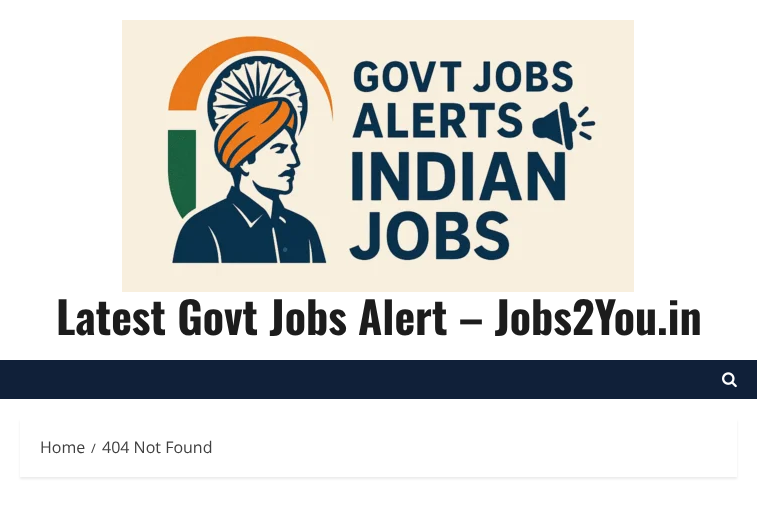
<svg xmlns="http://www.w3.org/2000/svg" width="757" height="507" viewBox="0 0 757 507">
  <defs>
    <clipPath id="clip1"><path d="M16 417H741V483H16ZM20 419H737V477H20Z" clip-rule="evenodd"/></clipPath>
    <filter id="blur1" x="-50%" y="-200%" width="200%" height="500%"><feGaussianBlur stdDeviation="1"/></filter>
  </defs>
  <rect width="100%" height="100%" fill="#ffffff"/>
  <image x="122" y="20" width="512" height="272" href="img1.png"/>
  <text x="56" y="335" font-family="Oswald" font-size="44" font-weight="bold" fill="#1c1c1c">Latest Govt Jobs Alert – Jobs2You.in</text>
  <rect x="0" y="360" width="757" height="39" fill="#102039"/>
  <image x="722" y="372" width="15" height="16" href="img2.png"/>
  <g clip-path="url(#clip1)">
    <rect x="20" y="421" width="717" height="58" fill="#000000" fill-opacity="0.08" filter="url(#blur1)"/>
  </g>
  <text x="40" y="453" font-family="Open Sans" font-size="16" fill="#404040">Home</text>
  <text x="91" y="453" font-family="Open Sans" font-size="13" fill="#404040">/</text>
  <text x="102" y="453" font-family="Open Sans" font-size="16" fill="#404040">404 Not Found</text>
</svg>
